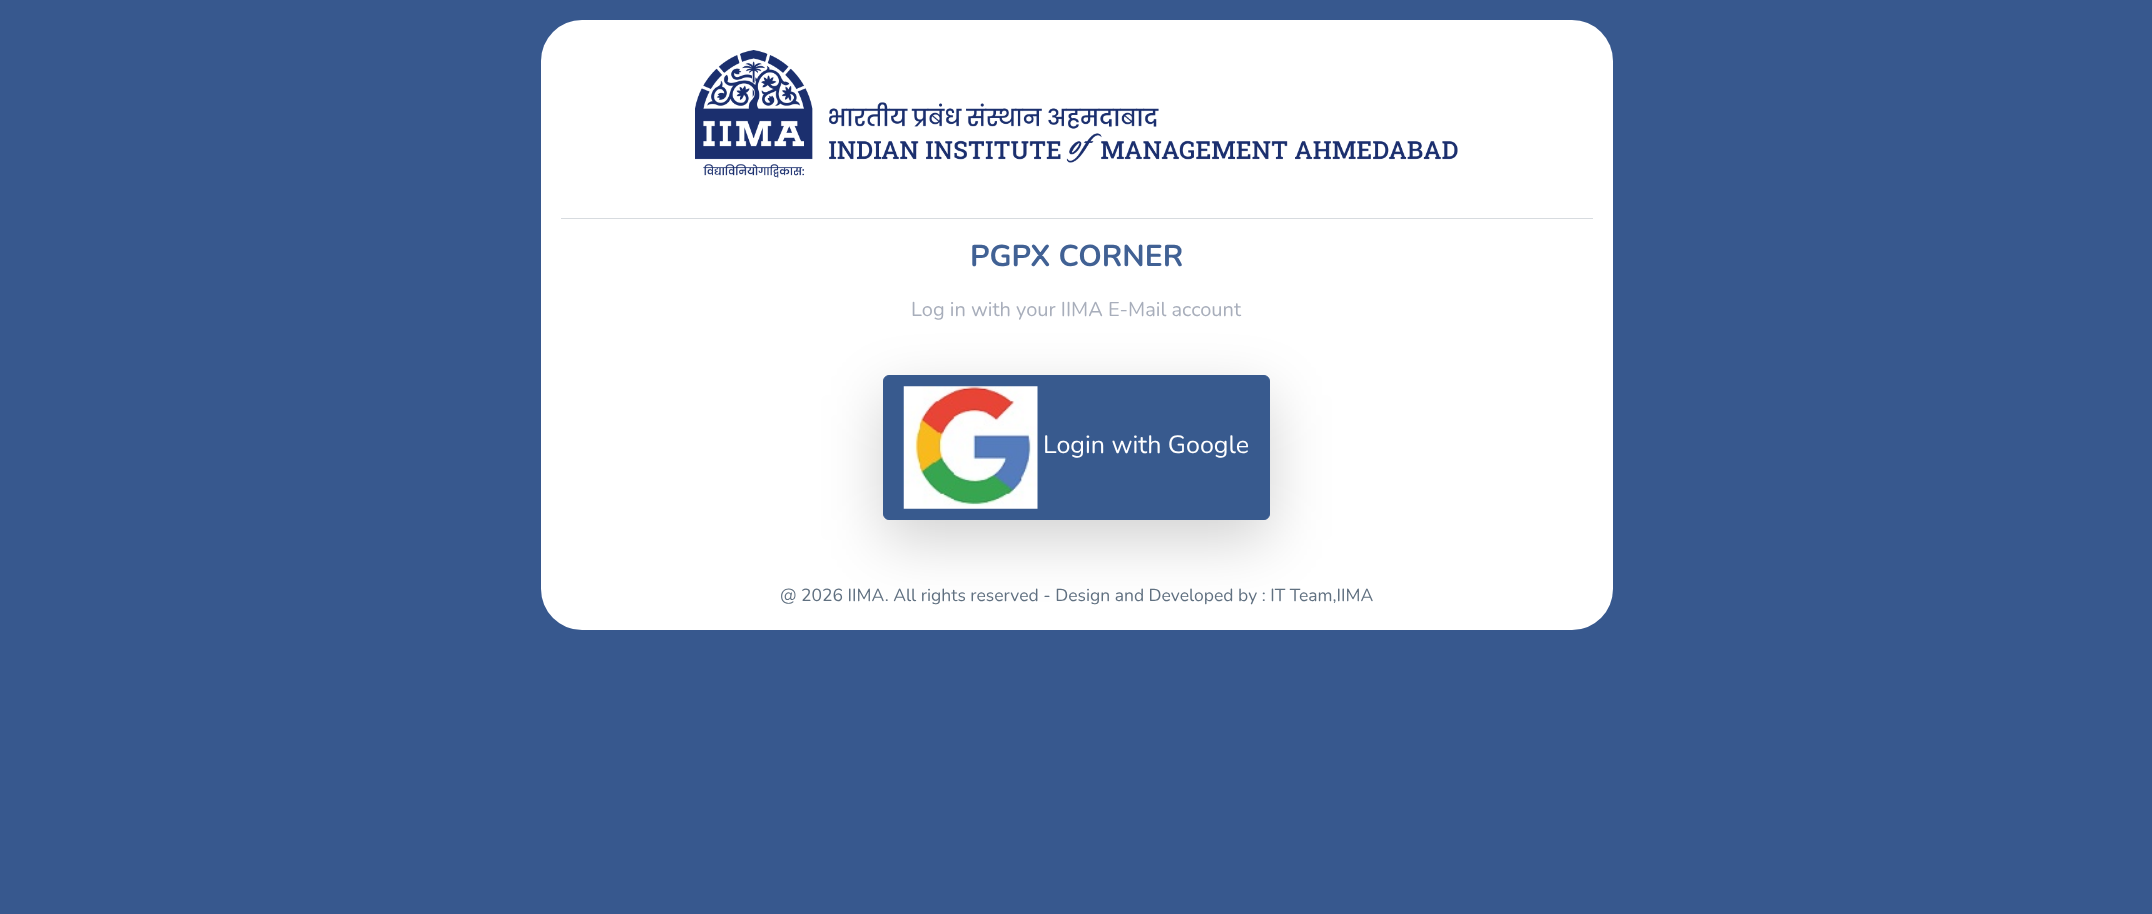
<svg xmlns="http://www.w3.org/2000/svg" width="2152" height="914" viewBox="0 0 2152 914">
  <defs>
    <filter id="blur1" x="-50%" y="-200%" width="200%" height="500%"><feGaussianBlur stdDeviation="30"/></filter>
  </defs>
  <rect width="100%" height="100%" fill="#37588e"/>
  <rect x="541" y="20" width="1072" height="610" rx="41" fill="#ffffff"/>
  <image x="695" y="50" width="763" height="128" href="img1.png"/>
  <rect x="561" y="218" width="1032" height="1" fill="#d7dbdf"/>
  <text x="970" y="266" font-family="Nunito" font-size="30" font-weight="bold" fill="#416194">PGPX CORNER</text>
  <text x="911" y="316" font-family="Nunito" font-size="20" fill="#a8aebb">Log in with your IIMA E-Mail account</text>
  <rect x="883" y="395" width="387" height="145" rx="6" fill="#000000" fill-opacity="0.18" filter="url(#blur1)"/>
  <rect x="883.5" y="375.5" width="386" height="144" rx="5.5" fill="#385a8e" stroke="#385a8e"/>
  <image x="903" y="386" width="135" height="123" href="img2.png"/>
  <text x="1043" y="453" font-family="Nunito" font-size="25" fill="#ffffff">Login with Google</text>
  <text x="780" y="601" font-family="Nunito" font-size="17.5" fill="#607080">@ 2026 IIMA. All rights reserved - Design and Developed by : IT Team,IIMA</text>
</svg>
